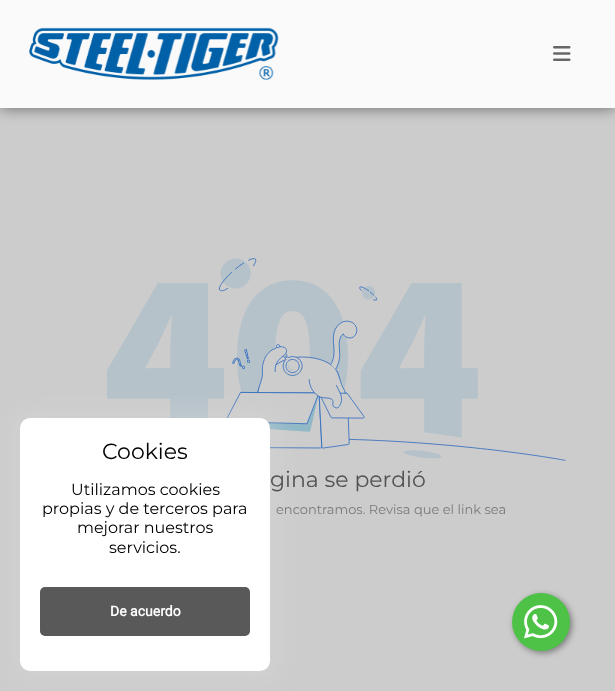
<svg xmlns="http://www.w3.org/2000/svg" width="615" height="691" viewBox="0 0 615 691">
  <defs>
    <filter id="blur1" x="-50%" y="-200%" width="200%" height="500%"><feGaussianBlur stdDeviation="7.5"/></filter>
    <filter id="blur2" x="-50%" y="-200%" width="200%" height="500%"><feGaussianBlur stdDeviation="10"/></filter>
    <filter id="blur3" x="-50%" y="-200%" width="200%" height="500%"><feGaussianBlur stdDeviation="3"/></filter>
  </defs>
  <rect width="100%" height="100%" fill="#cccccc"/>
  <rect x="0" y="0" width="615" height="108" fill="#000000" fill-opacity="0.5" filter="url(#blur1)"/>
  <rect x="0" y="0" width="615" height="108" fill="#fafafa"/>
  <image x="29" y="27" width="250" height="53" href="img1.png"/>
  <image x="553" y="46" width="18" height="15" href="img2.png"/>
  <image x="107" y="258" width="459" height="206" href="img3.png"/>
  <rect x="10" y="410" width="270" height="273" rx="20" fill="#dedede" fill-opacity="0.25" filter="url(#blur2)"/>
  <rect x="20" y="418" width="250" height="253" rx="10" fill="#ffffff"/>
  <text x="102" y="459" font-family="Montserrat" font-size="22" font-weight="100" fill="#000000">Cookies</text>
  <text x="71" y="495" font-family="Montserrat" font-size="16" font-weight="100" fill="#000000">Utilizamos cookies</text>
  <text x="42" y="514" font-family="Montserrat" font-size="16" font-weight="100" fill="#000000">propias y de terceros para</text>
  <text x="77" y="533" font-family="Montserrat" font-size="16" font-weight="100" fill="#000000">mejorar nuestros</text>
  <text x="109" y="553" font-family="Montserrat" font-size="16" font-weight="100" fill="#000000">servicios.</text>
  <rect x="40" y="587" width="210" height="49" rx="5" fill="#595959"/>
  <text x="110" y="616" font-family="Roboto" font-size="14" font-weight="bold" fill="#ffffff">De acuerdo</text>
  <text x="270" y="487" font-family="Montserrat" font-size="22" font-weight="100" fill="#525252">gina se perdió</text>
  <text x="276" y="514" font-family="Montserrat" font-size="13" font-weight="100" fill="#7a7a7a">encontramos. Revisa que el link sea</text>
  <rect x="514" y="595" width="58" height="58" rx="29" fill="#000000" fill-opacity="0.4" filter="url(#blur3)"/>
  <circle cx="541" cy="622" r="29" fill="#4dc247"/>
  <image x="524" y="605" width="34" height="34" href="img4.png"/>
</svg>
